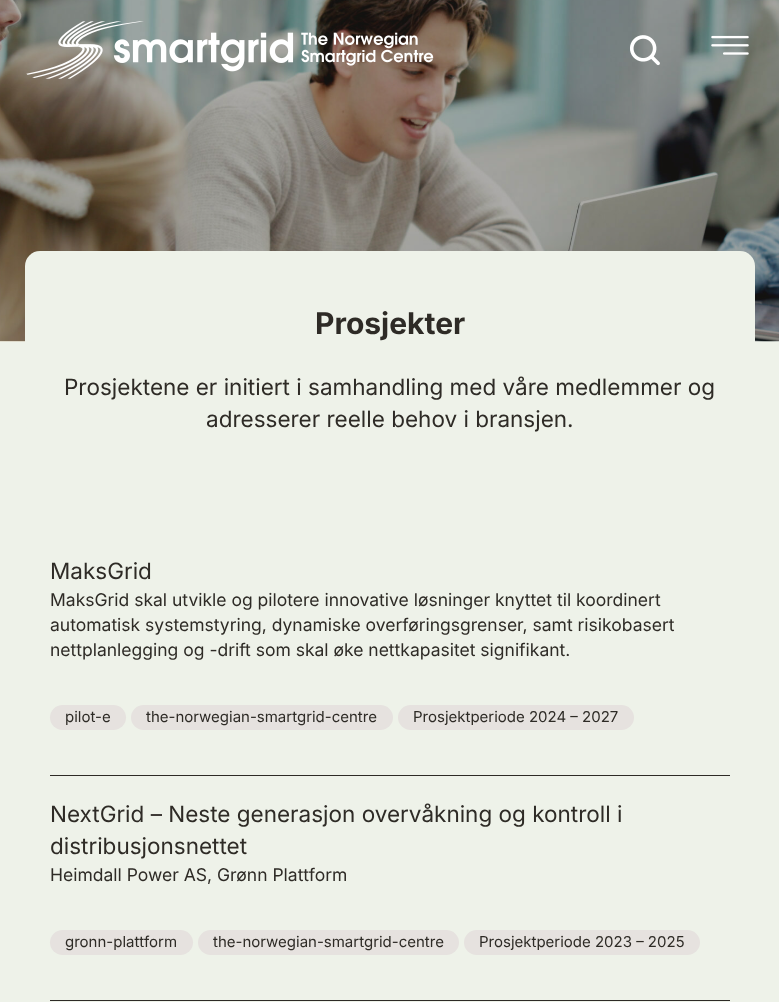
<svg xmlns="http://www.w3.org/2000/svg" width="779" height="1002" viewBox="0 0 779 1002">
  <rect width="100%" height="100%" fill="#eef2e9"/>
  <image x="0" y="0" width="779" height="342" href="img4.png"/>
  <image x="26" y="21" width="408" height="58" href="img1.png"/>
  <image x="630" y="35" width="30" height="31" href="img2.png"/>
  <image x="711" y="35" width="38" height="20" href="img3.png"/>
  <rect x="25" y="251" width="730" height="184" rx="15" fill="#eef2e9"/>
  <text x="315" y="334" font-family="Inter" font-size="30" font-weight="bold" fill="#2e2b26">Prosjekter</text>
  <text x="64" y="395" font-family="Inter" font-size="22.5" fill="#2e2b26">Prosjektene er initiert i samhandling med våre medlemmer og</text>
  <text x="206" y="427" font-family="Inter" font-size="22.5" fill="#2e2b26">adresserer reelle behov i bransjen.</text>
  <rect x="50" y="775" width="680" height="1" fill="#2e2b26"/>
  <text x="50" y="579" font-family="Inter" font-size="22.5" fill="#2e2b26">MaksGrid</text>
  <text x="50" y="606" font-family="Inter" font-size="17.5" fill="#2e2b26">MaksGrid skal utvikle og pilotere innovative løsninger knyttet til koordinert</text>
  <text x="50" y="631" font-family="Inter" font-size="17.5" fill="#2e2b26">automatisk systemstyring, dynamiske overføringsgrenser, samt risikobasert</text>
  <text x="50" y="656" font-family="Inter" font-size="17.5" fill="#2e2b26">nettplanlegging og -drift som skal øke nettkapasitet signifikant.</text>
  <rect x="50" y="705" width="76" height="25" rx="12.5" fill="#e6e2df"/>
  <text x="65" y="722" font-family="Inter" font-size="15" fill="#2e2b26">pilot-e</text>
  <rect x="131" y="705" width="262" height="25" rx="12.5" fill="#e6e2df"/>
  <text x="146" y="722" font-family="Inter" font-size="15" fill="#2e2b26">the-norwegian-smartgrid-centre</text>
  <rect x="398" y="705" width="236" height="25" rx="12.5" fill="#e6e2df"/>
  <text x="413" y="722" font-family="Inter" font-size="15" fill="#2e2b26">Prosjektperiode 2024 – 2027</text>
  <rect x="50" y="1000" width="680" height="1" fill="#2e2b26"/>
  <text x="50" y="822" font-family="Inter" font-size="22.5" fill="#2e2b26">NextGrid – Neste generasjon overvåkning og kontroll i</text>
  <text x="50" y="854" font-family="Inter" font-size="22.5" fill="#2e2b26">distribusjonsnettet</text>
  <text x="50" y="881" font-family="Inter" font-size="17.5" fill="#2e2b26">Heimdall Power AS, Grønn Plattform</text>
  <rect x="50" y="930" width="143" height="25" rx="12.5" fill="#e6e2df"/>
  <text x="65" y="947" font-family="Inter" font-size="15" fill="#2e2b26">gronn-plattform</text>
  <rect x="198" y="930" width="261" height="25" rx="12.5" fill="#e6e2df"/>
  <text x="213" y="947" font-family="Inter" font-size="15" fill="#2e2b26">the-norwegian-smartgrid-centre</text>
  <rect x="464" y="930" width="236" height="25" rx="12.5" fill="#e6e2df"/>
  <text x="479" y="947" font-family="Inter" font-size="15" fill="#2e2b26">Prosjektperiode 2023 – 2025</text>
</svg>
